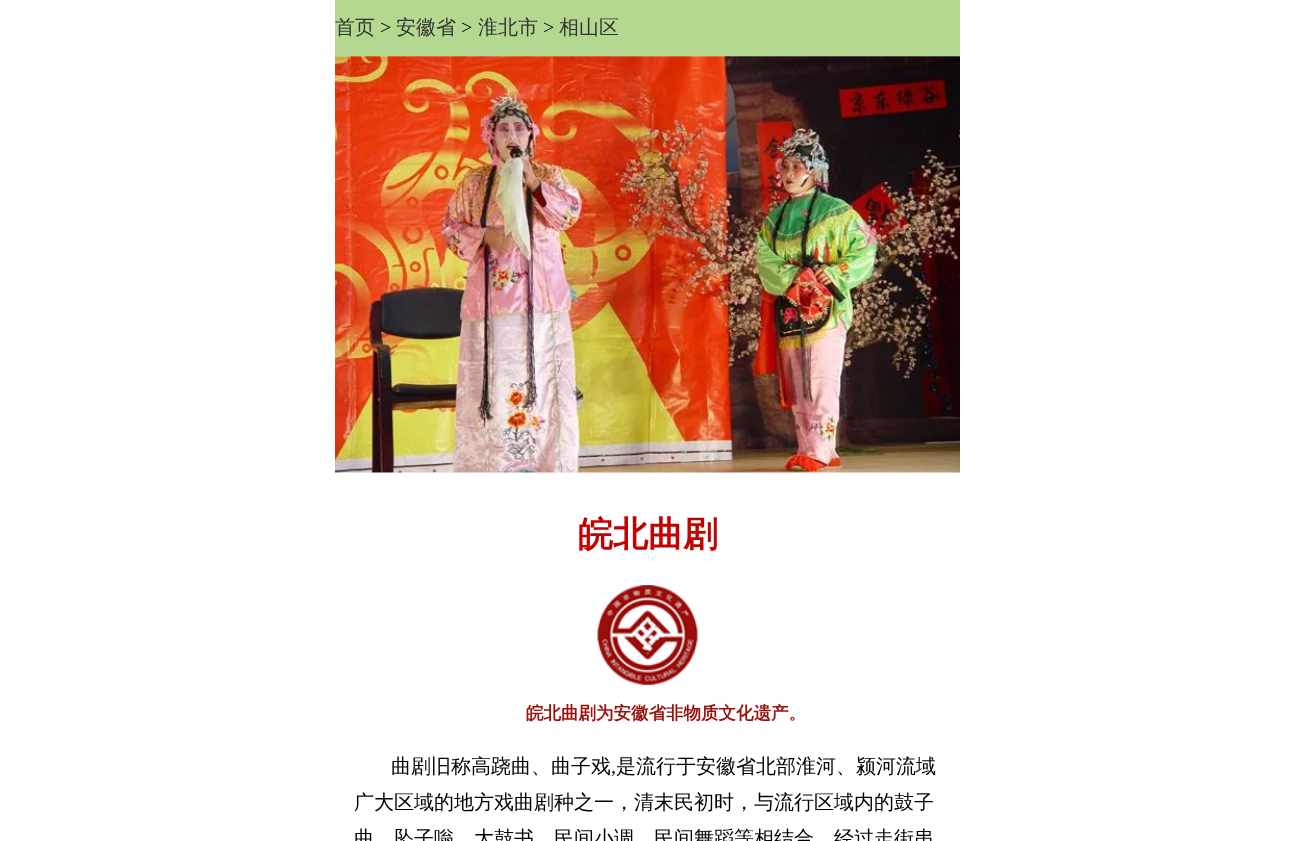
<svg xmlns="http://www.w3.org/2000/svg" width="1295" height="841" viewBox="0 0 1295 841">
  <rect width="100%" height="100%" fill="#ffffff"/>
  <rect x="335" y="0" width="625" height="56" fill="#b4d88f"/>
  <text x="335" y="34" font-family="WenQuanYi Zen Hei" font-size="20" font-weight="500" fill="#333333">首页</text>
  <text x="380" y="34" font-family="Liberation Serif" font-size="20" fill="#000000">&gt;</text>
  <text x="396" y="34" font-family="WenQuanYi Zen Hei" font-size="20" font-weight="500" fill="#333333">安徽省</text>
  <text x="461" y="34" font-family="Liberation Serif" font-size="20" fill="#000000">&gt;</text>
  <text x="478" y="34" font-family="WenQuanYi Zen Hei" font-size="20" font-weight="500" fill="#333333">淮北市</text>
  <text x="543" y="34" font-family="Liberation Serif" font-size="20" fill="#000000">&gt;</text>
  <text x="559" y="34" font-family="WenQuanYi Zen Hei" font-size="20" font-weight="500" fill="#333333">相山区</text>
  <image x="335" y="56" width="625" height="417" href="img1.png"/>
  <text x="578" y="546" font-family="WenQuanYi Zen Hei" font-size="35" font-weight="bold" fill="#c50000">皖北曲剧</text>
  <image x="597" y="585" width="101" height="100" href="img2.png"/>
  <text x="526" y="719" font-family="WenQuanYi Zen Hei" font-size="17.5" font-weight="bold" fill="#9a0f0a">皖北曲剧为安徽省非物质文化遗产。</text>
  <text x="391" y="773" font-family="WenQuanYi Zen Hei" font-size="20" font-weight="500" fill="#000000">曲剧旧称高跷曲、曲子戏</text>
  <text x="611" y="773" font-family="Liberation Serif" font-size="20" fill="#000000">,</text>
  <text x="616" y="773" font-family="WenQuanYi Zen Hei" font-size="20" font-weight="500" fill="#000000">是流行于安徽省北部淮河、颍河流域</text>
  <text x="354" y="809" font-family="WenQuanYi Zen Hei" font-size="20" font-weight="500" fill="#000000">广大区域的地方戏曲剧种之一，清末民初时，与流行区域内的鼓子</text>
  <text x="354" y="845" font-family="WenQuanYi Zen Hei" font-size="20" font-weight="500" fill="#000000">曲、坠子嗡、大鼓书、民间小调、民间舞蹈等相结合，经过走街串</text>
</svg>
